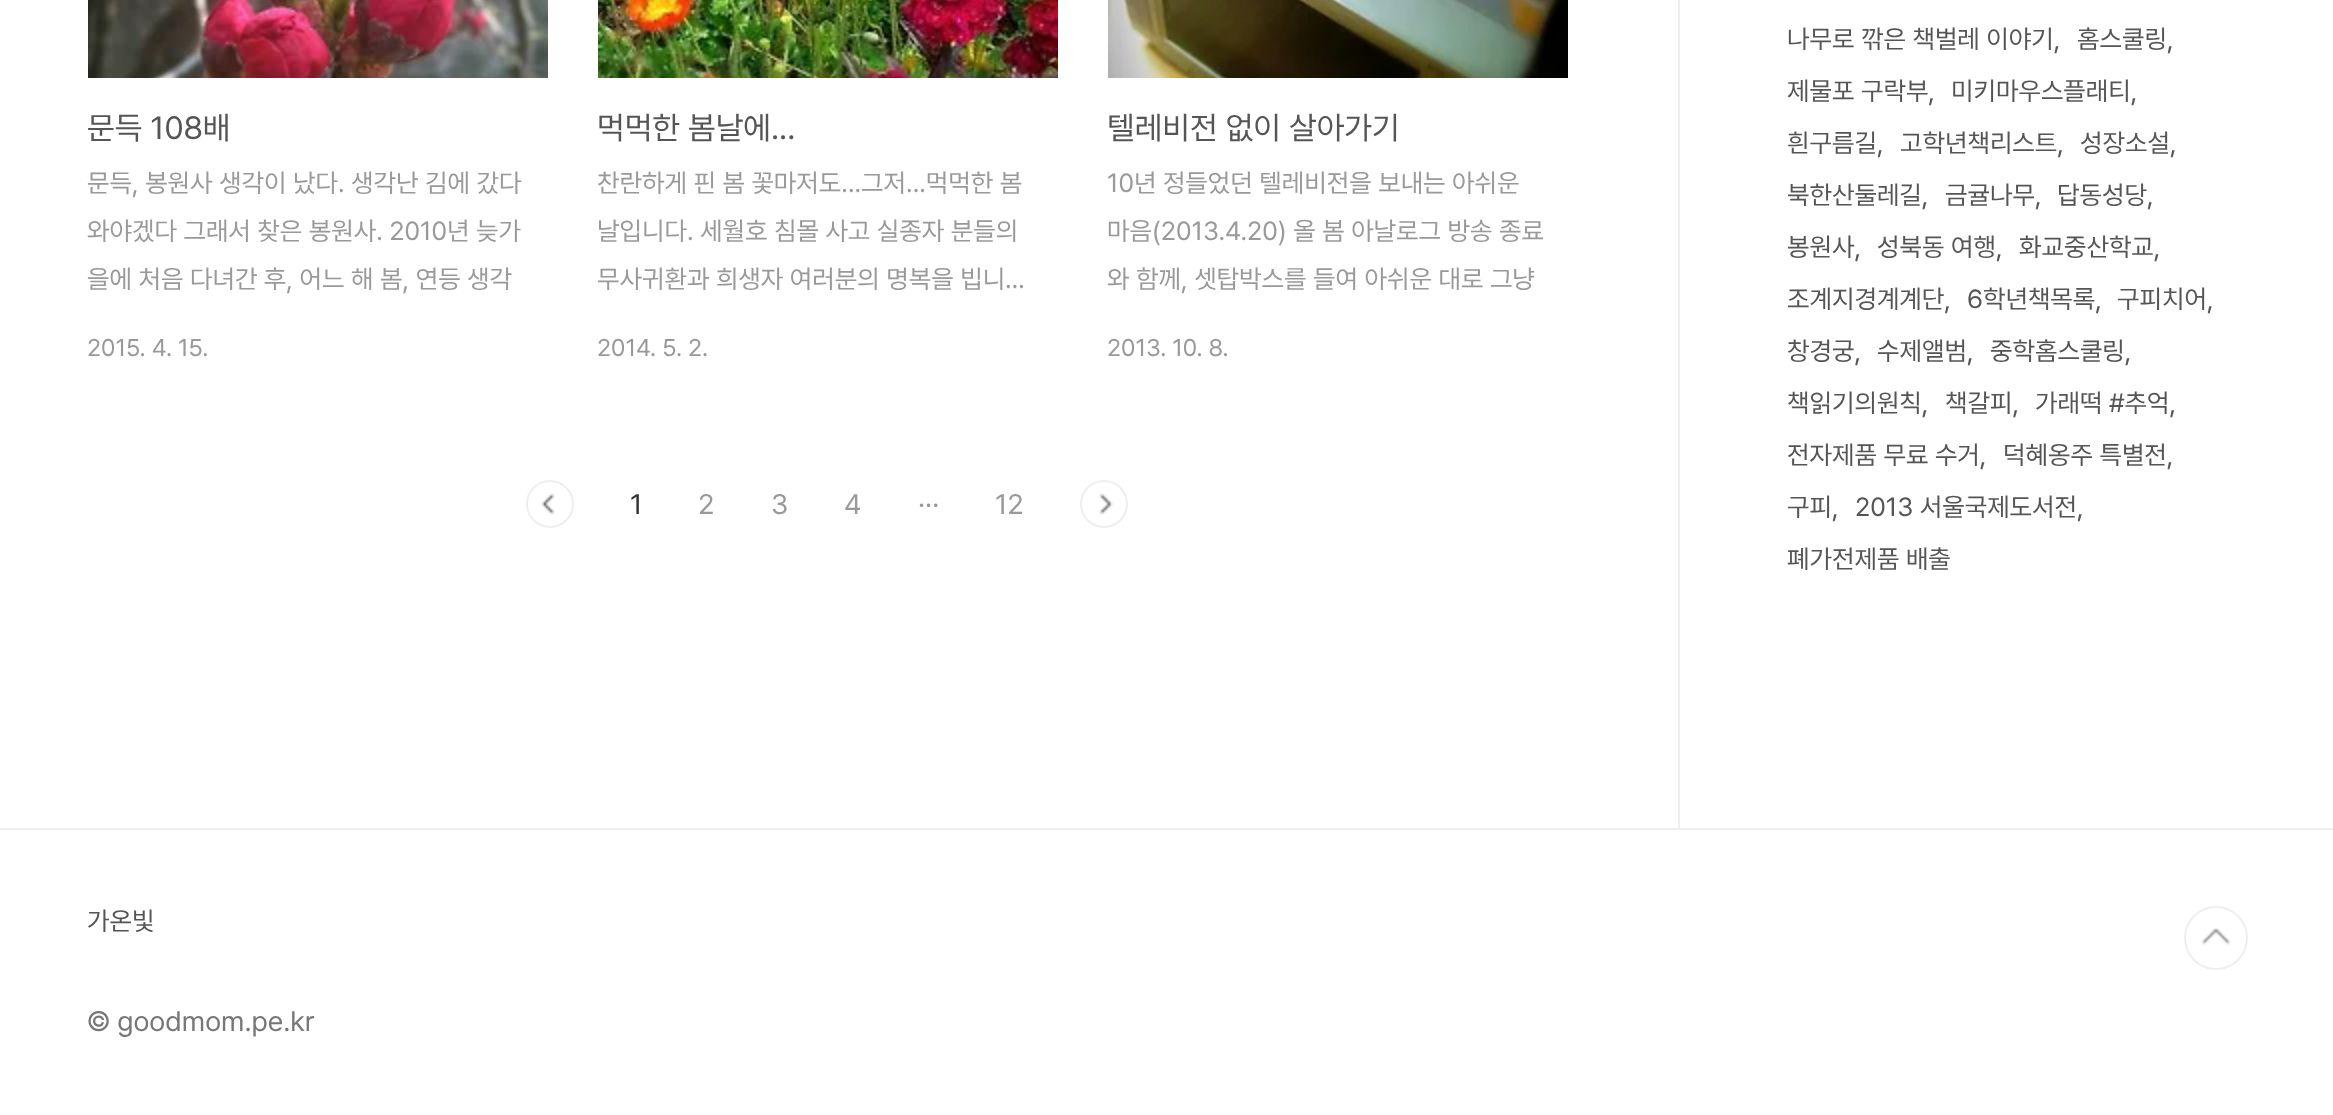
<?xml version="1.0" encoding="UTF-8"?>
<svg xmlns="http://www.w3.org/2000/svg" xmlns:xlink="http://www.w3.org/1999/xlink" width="2333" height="1115">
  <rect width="100%" height="100%" fill="#ffffff" />
  <image x="88" y="0" width="460" height="78" xlink:href="image1.png" />
  <image x="598" y="0" width="460" height="78" xlink:href="image2.png" />
  <image x="1108" y="0" width="460" height="78" xlink:href="image3.png" />
  <image x="541" y="493" width="14" height="22" xlink:href="image4.png" />
  <circle cx="550" cy="504" r="23" fill="none" stroke="#eeeeee" stroke-width="2" />
  <image x="1099" y="493" width="14" height="22" xlink:href="image5.png" />
  <circle cx="1104" cy="504" r="23" fill="none" stroke="#eeeeee" stroke-width="2" />
  <rect x="1678" width="2" height="828" fill="#eeeeee" />
  <rect y="828" width="2333" height="2" fill="#eeeeee" />
  <image x="2201" y="927" width="30" height="18" xlink:href="image6.png" />
  <circle cx="2216" cy="938" r="31" fill="none" stroke="#eeeeee" stroke-width="2" />
  <text x="87" y="139" style="font-family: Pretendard; font-size: 32px; fill: #555555">문득 108배</text>
  <text x="87" y="192" style="font-family: Pretendard; font-size: 26px; fill: #999999">문득, 봉원사 생각이 났다. 생각난 김에 갔다</text>
  <text x="87" y="240" style="font-family: Pretendard; font-size: 26px; fill: #999999">와야겠다 그래서 찾은 봉원사. 2010년 늦가</text>
  <text x="87" y="288" style="font-family: Pretendard; font-size: 26px; fill: #999999">을에 처음 다녀간 후, 어느 해 봄, 연등 생각</text>
  <text x="87" y="356" style="font-family: Pretendard; font-size: 24px; fill: #999999">2015. 4. 15.</text>
  <text x="597" y="139" style="font-family: Pretendard; font-size: 32px; fill: #555555">먹먹한 봄날에...</text>
  <text x="597" y="192" style="font-family: Pretendard; font-size: 26px; fill: #999999">찬란하게 핀 봄 꽃마저도...그저...먹먹한 봄</text>
  <text x="597" y="240" style="font-family: Pretendard; font-size: 26px; fill: #999999">날입니다. 세월호 침몰 사고 실종자 분들의</text>
  <text x="597" y="288" style="font-family: Pretendard; font-size: 26px; fill: #999999">무사귀환과 희생자 여러분의 명복을 빕니…</text>
  <text x="597" y="356" style="font-family: Pretendard; font-size: 24px; fill: #999999">2014. 5. 2.</text>
  <text x="1107" y="139" style="font-family: Pretendard; font-size: 32px; fill: #555555">텔레비전 없이 살아가기</text>
  <text x="1107" y="192" style="font-family: Pretendard; font-size: 26px; fill: #999999">10년 정들었던 텔레비전을 보내는 아쉬운</text>
  <text x="1107" y="240" style="font-family: Pretendard; font-size: 26px; fill: #999999">마음(2013.4.20) 올 봄 아날로그 방송 종료</text>
  <text x="1107" y="288" style="font-family: Pretendard; font-size: 26px; fill: #999999">와 함께, 셋탑박스를 들여 아쉬운 대로 그냥</text>
  <text x="1107" y="356" style="font-family: Pretendard; font-size: 24px; fill: #999999">2013. 10. 8.</text>
  <text x="630" y="514" style="font-family: Pretendard; font-size: 28px; fill: #333333">1</text>
  <text x="698" y="514" style="font-family: Pretendard; font-size: 28px; fill: #999999">2</text>
  <text x="771" y="514" style="font-family: Pretendard; font-size: 28px; fill: #999999">3</text>
  <text x="844" y="514" style="font-family: Pretendard; font-size: 28px; fill: #999999">4</text>
  <text x="918" y="514" style="font-family: Pretendard; font-size: 28px; fill: #999999">···</text>
  <text x="995" y="514" style="font-family: Pretendard; font-size: 28px; fill: #999999">12</text>
  <text x="1787" y="48" style="font-family: Pretendard; font-size: 26px; fill: #555555">나무로 깎은 책벌레 이야기,</text>
  <text x="2077" y="48" style="font-family: Pretendard; font-size: 26px; fill: #555555">홈스쿨링,</text>
  <text x="1787" y="100" style="font-family: Pretendard; font-size: 26px; fill: #555555">제물포 구락부,</text>
  <text x="1951" y="100" style="font-family: Pretendard; font-size: 26px; fill: #555555">미키마우스플래티,</text>
  <text x="1787" y="152" style="font-family: Pretendard; font-size: 26px; fill: #555555">흰구름길,</text>
  <text x="1900" y="152" style="font-family: Pretendard; font-size: 26px; fill: #555555">고학년책리스트,</text>
  <text x="2080" y="152" style="font-family: Pretendard; font-size: 26px; fill: #555555">성장소설,</text>
  <text x="1787" y="204" style="font-family: Pretendard; font-size: 26px; fill: #555555">북한산둘레길,</text>
  <text x="1945" y="204" style="font-family: Pretendard; font-size: 26px; fill: #555555">금귤나무,</text>
  <text x="2057" y="204" style="font-family: Pretendard; font-size: 26px; fill: #555555">답동성당,</text>
  <text x="1787" y="256" style="font-family: Pretendard; font-size: 26px; fill: #555555">봉원사,</text>
  <text x="1877" y="256" style="font-family: Pretendard; font-size: 26px; fill: #555555">성북동 여행,</text>
  <text x="2019" y="256" style="font-family: Pretendard; font-size: 26px; fill: #555555">화교중산학교,</text>
  <text x="1787" y="308" style="font-family: Pretendard; font-size: 26px; fill: #555555">조계지경계계단,</text>
  <text x="1967" y="308" style="font-family: Pretendard; font-size: 26px; fill: #555555">6학년책목록,</text>
  <text x="2117" y="308" style="font-family: Pretendard; font-size: 26px; fill: #555555">구피치어,</text>
  <text x="1787" y="360" style="font-family: Pretendard; font-size: 26px; fill: #555555">창경궁,</text>
  <text x="1877" y="360" style="font-family: Pretendard; font-size: 26px; fill: #555555">수제앨범,</text>
  <text x="1990" y="360" style="font-family: Pretendard; font-size: 26px; fill: #555555">중학홈스쿨링,</text>
  <text x="1787" y="412" style="font-family: Pretendard; font-size: 26px; fill: #555555">책읽기의원칙,</text>
  <text x="1945" y="412" style="font-family: Pretendard; font-size: 26px; fill: #555555">책갈피,</text>
  <text x="2035" y="412" style="font-family: Pretendard; font-size: 26px; fill: #555555">가래떡 #추억,</text>
  <text x="1787" y="464" style="font-family: Pretendard; font-size: 26px; fill: #555555">전자제품 무료 수거,</text>
  <text x="2003" y="464" style="font-family: Pretendard; font-size: 26px; fill: #555555">덕혜옹주 특별전,</text>
  <text x="1787" y="516" style="font-family: Pretendard; font-size: 26px; fill: #555555">구피,</text>
  <text x="1855" y="516" style="font-family: Pretendard; font-size: 26px; fill: #555555">2013 서울국제도서전,</text>
  <text x="1787" y="568" style="font-family: Pretendard; font-size: 26px; fill: #555555">폐가전제품 배출</text>
  <text x="87" y="930" style="font-family: Pretendard; font-size: 26px; fill: #555555">가온빛</text>
  <text x="87" y="1031" style="font-family: Pretendard; font-size: 28px; fill: #777777">© goodmom.pe.kr</text>
</svg>
